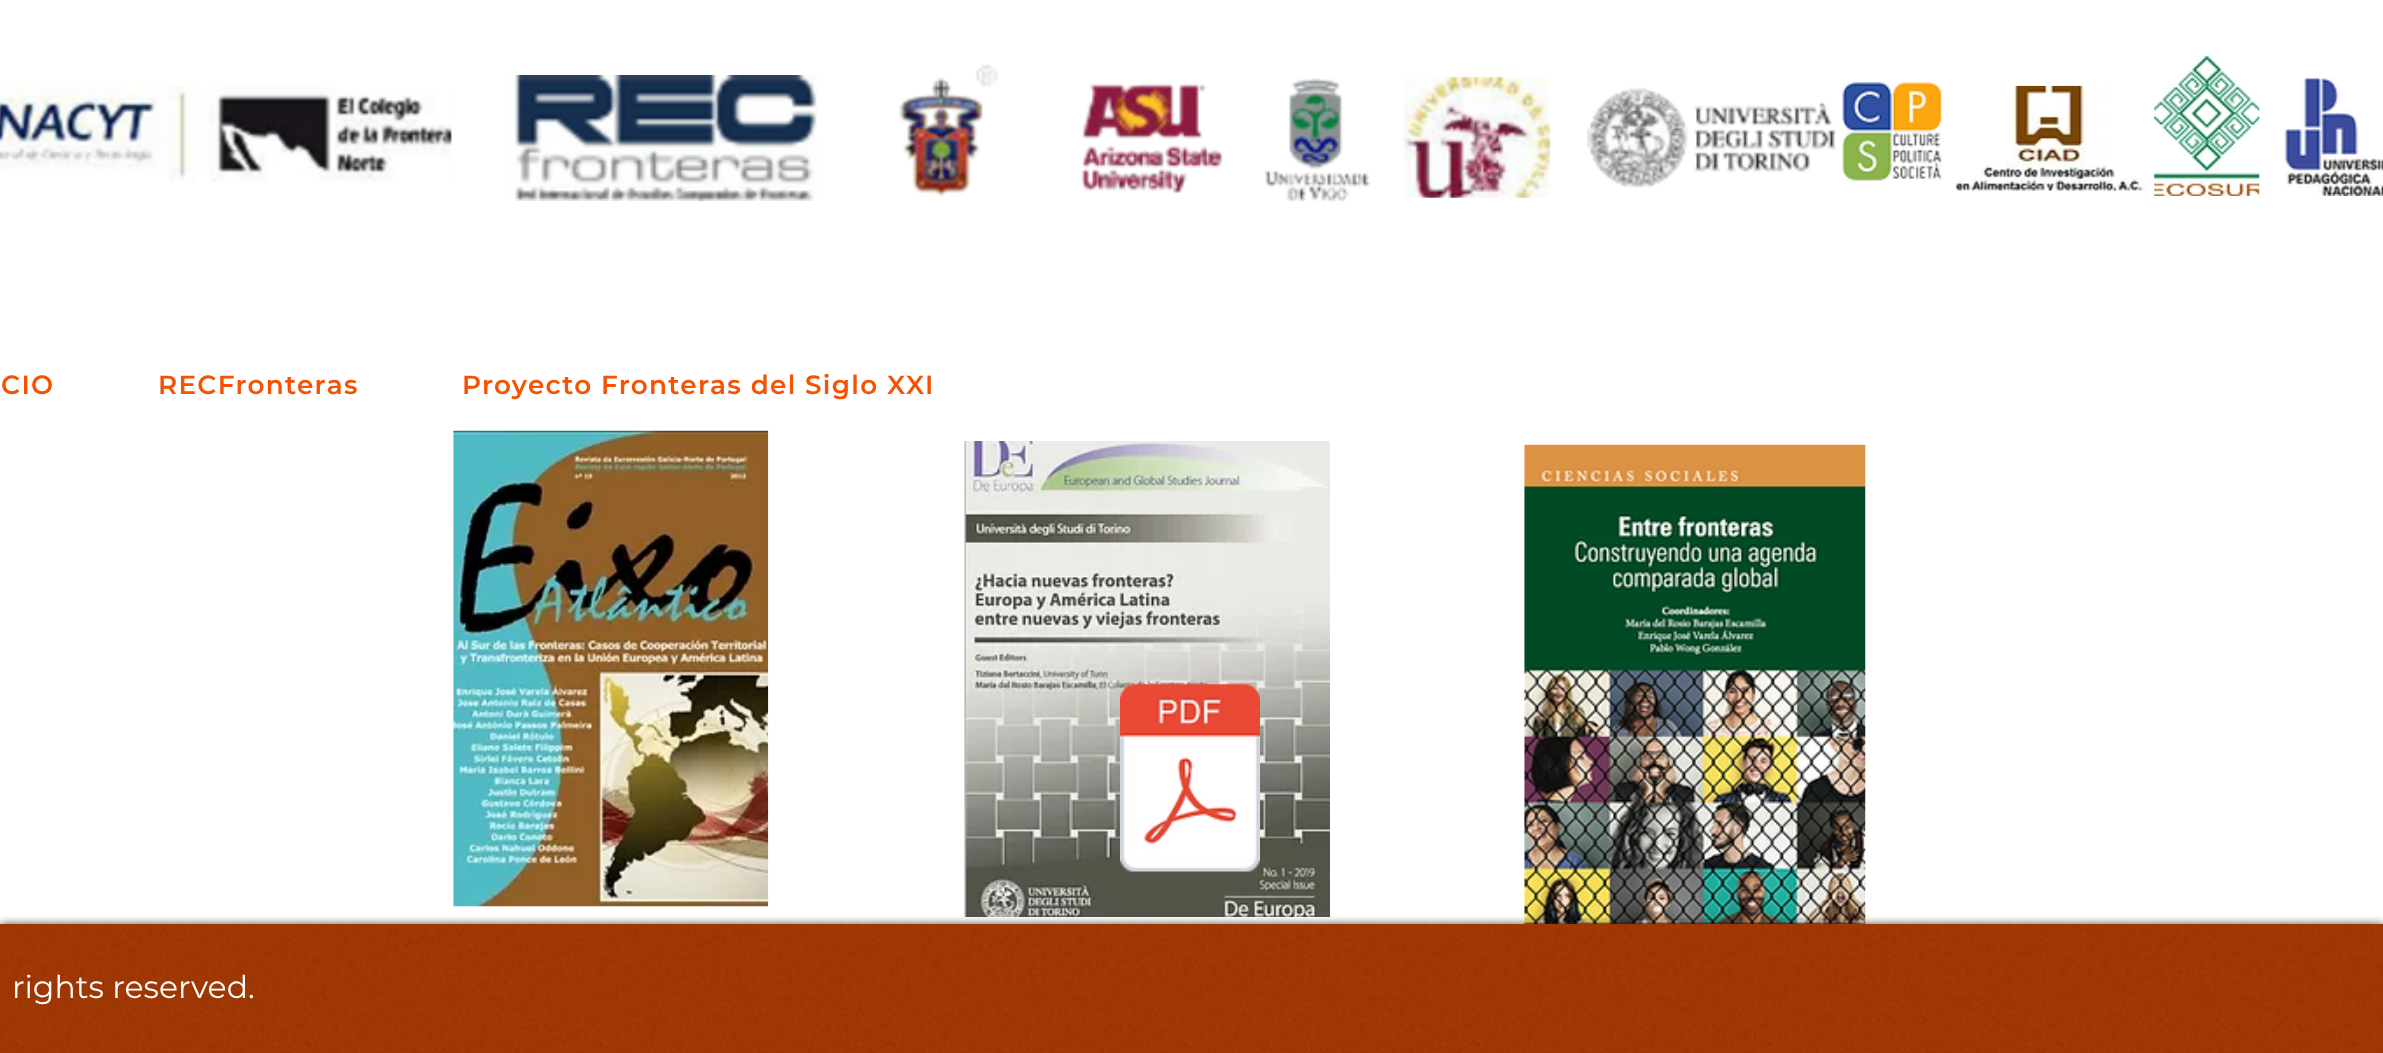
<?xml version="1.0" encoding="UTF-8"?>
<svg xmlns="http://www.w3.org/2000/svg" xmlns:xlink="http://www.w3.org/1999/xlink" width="2383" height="1053">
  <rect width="100%" height="100%" fill="#ffffff" />
  <image x="0" y="86" width="452" height="97" xlink:href="image1.png" />
  <image x="507" y="75" width="311" height="126" xlink:href="image2.png" />
  <image x="899" y="64" width="100" height="133" xlink:href="image3.png" />
  <image x="1081" y="83" width="143" height="111" xlink:href="image4.png" />
  <image x="1264" y="77" width="106" height="125" xlink:href="image5.png" />
  <image x="1403" y="76" width="148" height="122" xlink:href="image6.png" />
  <image x="1587" y="87" width="249" height="102" xlink:href="image7.png" />
  <image x="1842" y="81" width="101" height="100" xlink:href="image8.png" />
  <image x="1953" y="85" width="193" height="106" xlink:href="image9.png" />
  <image x="2154" y="56" width="106" height="140" xlink:href="image10.png" />
  <image x="2284" y="77" width="99" height="119" xlink:href="image11.png" />
  <image x="453" y="430" width="316" height="477" xlink:href="image12.png" />
  <image x="964" y="441" width="366" height="476" xlink:href="image13.png" />
  <image x="1524" y="444" width="342" height="480" xlink:href="image14.png" />
  <image x="1120" y="684" width="140" height="188" xlink:href="image15.png" />
  <rect y="924" width="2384" height="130" fill="#000000" fill-opacity="0.7" filter="blur(4.5px)" />
  <rect y="924" width="2383" height="129" fill="#a33702" />
  <image x="0" y="924" width="2383" height="129" xlink:href="image16.png" />
  <text x="1" y="394" style="font-family: Montserrat; font-size: 26.25px; font-weight: 600; letter-spacing: 1.3px; fill: #f55203">CIO</text>
  <text x="158" y="394" style="font-family: Montserrat; font-size: 26.25px; font-weight: 600; letter-spacing: 1.3px; fill: #f55203">RECFronteras</text>
  <text x="462" y="394" style="font-family: Montserrat; font-size: 26.25px; font-weight: 600; letter-spacing: 1.3px; fill: #f55203">Proyecto Fronteras del Siglo XXI</text>
  <text x="12" y="998" style="font-family: Montserrat; font-size: 31.5px; fill: #ffffff">rights reserved.</text>
</svg>
